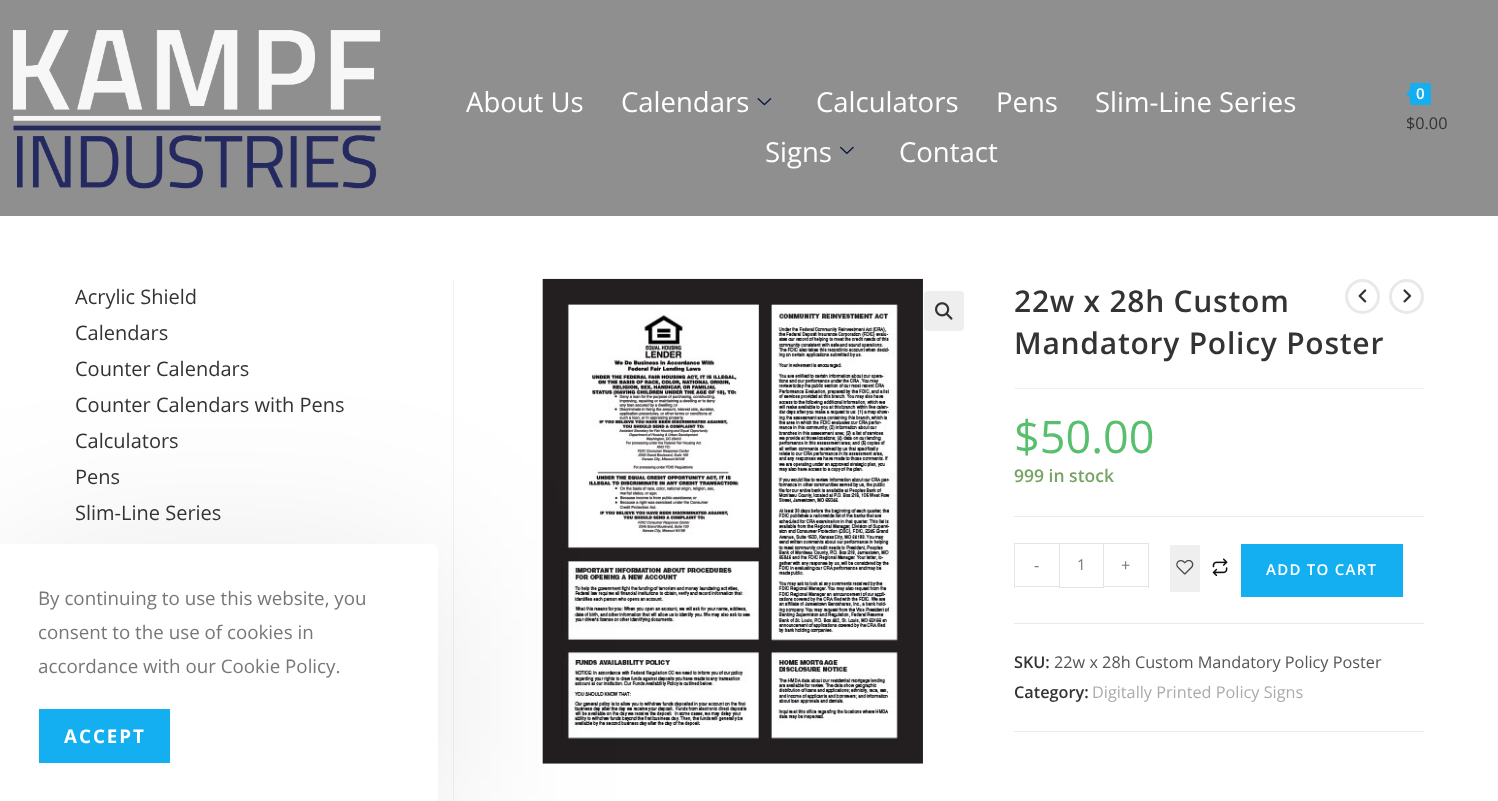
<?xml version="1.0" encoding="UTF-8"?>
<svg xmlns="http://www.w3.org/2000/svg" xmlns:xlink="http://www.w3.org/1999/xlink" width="1498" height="801">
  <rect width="100%" height="100%" fill="#ffffff" />
  <rect width="1498" height="216" fill="#8f8f8f" />
  <image x="12" y="30" width="369" height="159" xlink:href="image1.png" />
  <image x="757" y="98" width="15" height="8" xlink:href="image2.png" />
  <image x="840" y="146" width="14" height="8" xlink:href="image3.png" />
  <rect x="1410" y="83" width="21" height="22" rx="2.5" fill="#13aff0" />
  <path d="M 1412.5 87.5 v 12.5 l -6.5 -6 z" fill="#13aff0" />
  <rect x="453" y="279" width="1" height="522" fill="#f1f1f1" />
  <image x="542" y="278" width="381" height="486" xlink:href="image4.png" />
  <rect x="924" y="291" width="40" height="40" rx="4" fill="#eeeeee" />
  <image x="935" y="302" width="18" height="18" xlink:href="image5.png" />
  <rect x="1014" y="388" width="410" height="1" fill="#f1f1f1" />
  <rect x="1014" y="516" width="410" height="1" fill="#eaeaea" />
  <rect x="1014" y="623" width="410" height="1" fill="#eaeaea" />
  <rect x="1014" y="543" width="45" height="1" fill="#e4e4e4" />
  <rect x="1014" y="586" width="45" height="1" fill="#e4e4e4" />
  <rect x="1014" y="543" width="1" height="45" fill="#e4e4e4" />
  <rect x="1059.5" y="543.5" width="44" height="44" fill="none" stroke="#e4e4e4" />
  <rect x="1104" y="543" width="45" height="1" fill="#e4e4e4" />
  <rect x="1148" y="543" width="1" height="45" fill="#e4e4e4" />
  <rect x="1104" y="586" width="45" height="1" fill="#e4e4e4" />
  <rect x="1170" y="545" width="30" height="47" fill="#efefef" />
  <image x="1176" y="559" width="18" height="16" xlink:href="image6.png" />
  <image x="1212" y="558" width="16" height="19" xlink:href="image7.png" />
  <rect x="1241" y="544" width="162" height="53" fill="#13aff0" />
  <rect x="1014" y="731" width="410" height="1" fill="#eaeaea" />
  <circle cx="1362.5" cy="296.5" r="16" fill="none" stroke="#e9e9e9" stroke-width="3" />
  <image x="1358" y="289" width="9" height="14" xlink:href="image8.png" />
  <circle cx="1406.5" cy="296.5" r="16" fill="none" stroke="#e9e9e9" stroke-width="3" />
  <image x="1403" y="289" width="9" height="14" xlink:href="image9.png" />
  <rect y="569" width="438" height="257" rx="5" fill="#000000" fill-opacity="0.1" filter="blur(94px)" />
  <path d="M 0 544 h 433 c 3 0 5 2 5 5 v 252 h -438 z" fill="#ffffff" />
  <rect x="39" y="709" width="131" height="54" fill="#13aff0" />
  <text x="466" y="112" style="font-family: Open Sans; font-size: 27.5px; fill: #ffffff">About Us</text>
  <text x="621" y="112" style="font-family: Open Sans; font-size: 27.5px; fill: #ffffff">Calendars</text>
  <text x="816" y="112" style="font-family: Open Sans; font-size: 27.5px; fill: #ffffff">Calculators</text>
  <text x="996" y="112" style="font-family: Open Sans; font-size: 27.5px; fill: #ffffff">Pens</text>
  <text x="1095" y="112" style="font-family: Open Sans; font-size: 27.5px; fill: #ffffff">Slim-Line Series</text>
  <text x="765" y="162" style="font-family: Open Sans; font-size: 27.5px; fill: #ffffff">Signs</text>
  <text x="899" y="162" style="font-family: Open Sans; font-size: 27.5px; fill: #ffffff">Contact</text>
  <text x="1416" y="99" style="font-family: Open Sans; font-size: 15px; font-weight: 600; fill: #ffffff">0</text>
  <text x="1406" y="129" style="font-family: Open Sans; font-size: 16.25px; fill: #333333">$0.00</text>
  <text x="75" y="304" style="font-family: Open Sans; font-size: 20px; fill: #333333">Acrylic Shield</text>
  <text x="75" y="340" style="font-family: Open Sans; font-size: 20px; fill: #333333">Calendars</text>
  <text x="75" y="376" style="font-family: Open Sans; font-size: 20px; fill: #333333">Counter Calendars</text>
  <text x="75" y="412" style="font-family: Open Sans; font-size: 20px; fill: #333333">Counter Calendars with Pens</text>
  <text x="75" y="448" style="font-family: Open Sans; font-size: 20px; fill: #333333">Calculators</text>
  <text x="75" y="484" style="font-family: Open Sans; font-size: 20px; fill: #333333">Pens</text>
  <text x="75" y="520" style="font-family: Open Sans; font-size: 20px; fill: #333333">Slim-Line Series</text>
  <text x="1014" y="312" style="font-family: Open Sans; font-size: 30px; font-weight: 600; letter-spacing: 0.75px; fill: #333333">22w x 28h Custom</text>
  <text x="1014" y="354" style="font-family: Open Sans; font-size: 30px; font-weight: 600; letter-spacing: 0.75px; fill: #333333">Mandatory Policy Poster</text>
  <text x="1014" y="453" style="font-family: Open Sans; font-size: 45px; fill: #57bf6d">$50.00</text>
  <text x="1014" y="482" style="font-family: Open Sans; font-size: 17.5px; font-weight: 600; fill: #77a464">999 in stock</text>
  <text x="1034" y="571" style="font-family: Open Sans; font-size: 16.25px; fill: #777777">-</text>
  <text x="1077" y="570" style="font-family: Open Sans; font-size: 15px; fill: #777777">1</text>
  <text x="1121" y="571" style="font-family: Open Sans; font-size: 16.25px; fill: #777777">+</text>
  <text x="1266" y="575" style="font-family: Open Sans; font-size: 15px; font-weight: 600; letter-spacing: 1.25px; fill: #ffffff">ADD TO CART</text>
  <text x="1014" y="668" style="font-family: Open Sans; font-size: 16.25px; font-weight: 600; fill: #333333">SKU:</text>
  <text x="1054" y="668" style="font-family: Open Sans; font-size: 16.25px; fill: #555555">22w x 28h Custom Mandatory Policy Poster</text>
  <text x="1014" y="698" style="font-family: Open Sans; font-size: 16.25px; font-weight: 600; fill: #333333">Category:</text>
  <text x="1092" y="698" style="font-family: Open Sans; font-size: 16.25px; fill: #ababab">Digitally Printed Policy Signs</text>
  <text x="38" y="605" style="font-family: Open Sans; font-size: 18.75px; fill: #777777">By continuing to use this website, you</text>
  <text x="38" y="639" style="font-family: Open Sans; font-size: 18.75px; fill: #777777">consent to the use of cookies in</text>
  <text x="38" y="673" style="font-family: Open Sans; font-size: 18.75px; fill: #777777">accordance with our Cookie Policy.</text>
  <text x="64" y="743" style="font-family: Open Sans; font-size: 18.75px; font-weight: bold; letter-spacing: 2px; fill: #ffffff">ACCEPT</text>
</svg>
